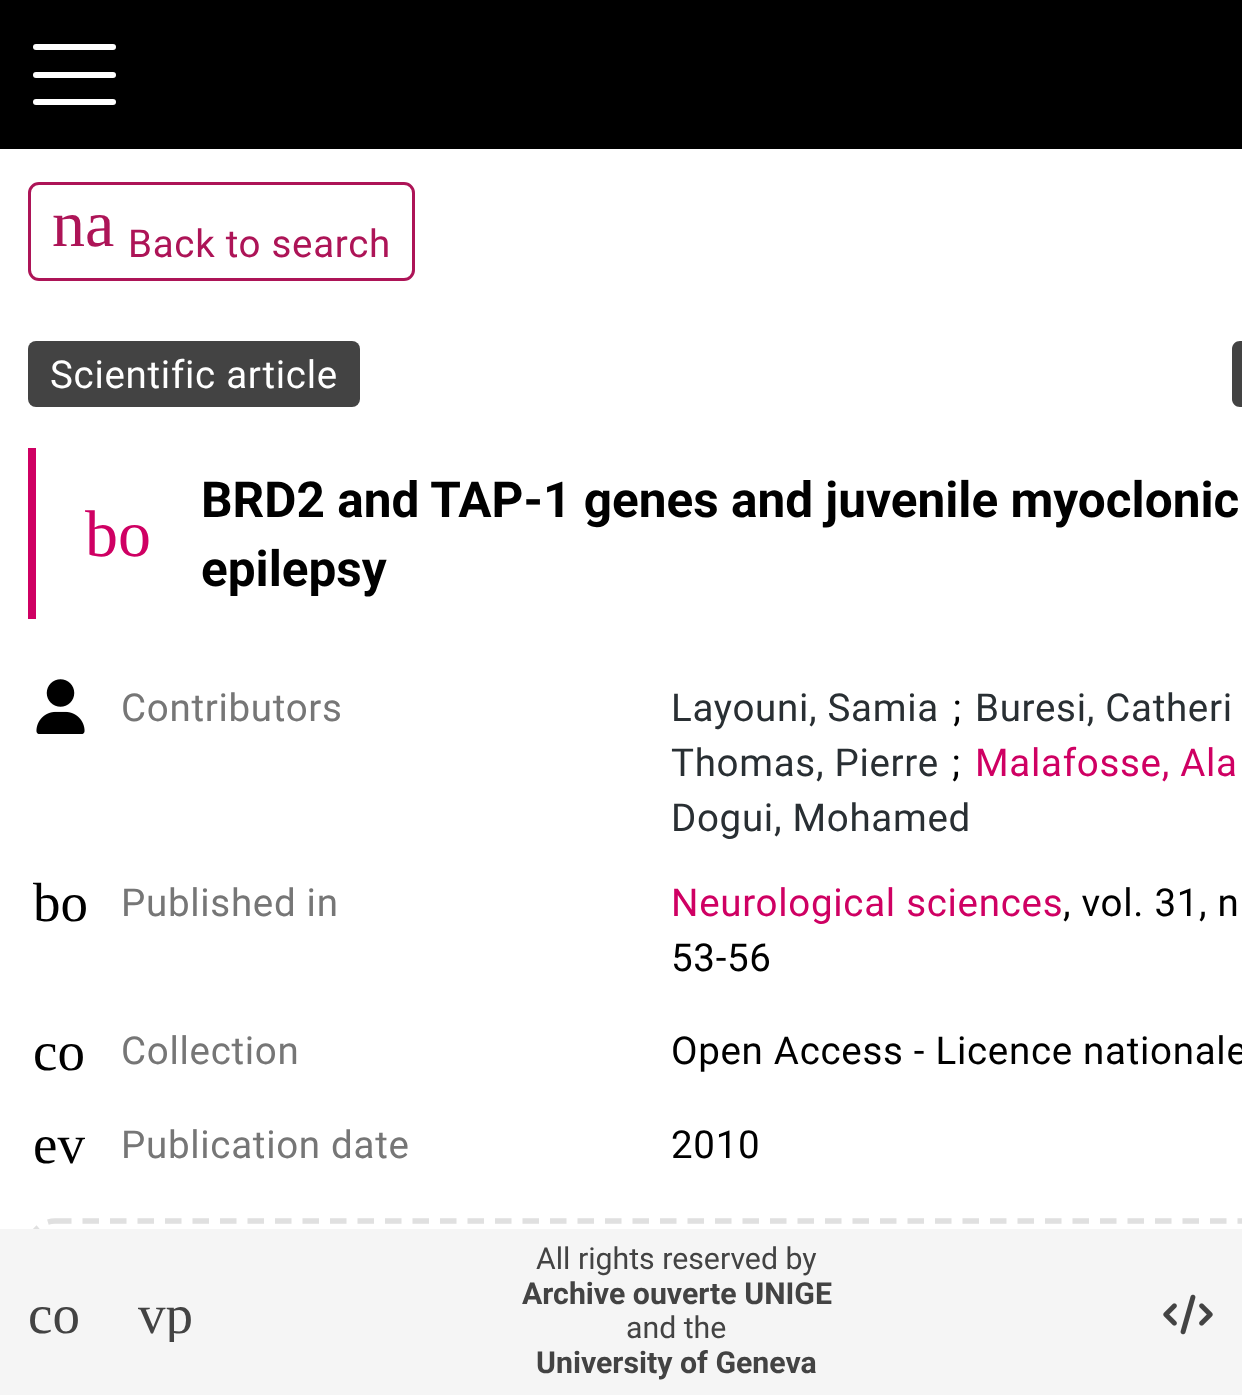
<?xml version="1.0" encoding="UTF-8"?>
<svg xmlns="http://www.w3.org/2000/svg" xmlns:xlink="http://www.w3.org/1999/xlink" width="1242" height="1395">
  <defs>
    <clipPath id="clip1"><rect x="138" y="1287" width="55" height="55" /></clipPath>
  </defs>
  <rect width="100%" height="100%" fill="#ffffff" />
  <rect width="1242" height="149" fill="#000000" />
  <rect x="33" y="44" width="83" height="6" rx="3" fill="#ffffff" />
  <rect x="33" y="72" width="83" height="6" rx="3" fill="#ffffff" />
  <rect x="33" y="99" width="83" height="6" rx="3" fill="#ffffff" />
  <rect x="29.5" y="183.5" width="384" height="96" rx="9.5" fill="none" stroke="#ad1457" stroke-width="3" />
  <rect x="28" y="341" width="332" height="66" rx="8" fill="#434343" />
  <path d="M 1240 341 h 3 v 66 h -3 c -4.5 0 -8 -3.5 -8 -8 v -50 c 0 -4.5 3.5 -8 8 -8 z" fill="#434343" />
  <rect x="28" y="448" width="8" height="171" fill="#cf0063" />
  <image x="36" y="679" width="49" height="55" xlink:href="image1.png" />
  <path d="M 55 1221 h 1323 c 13.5 0 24.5 11 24.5 25 v 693 c 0 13.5 -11 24.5 -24.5 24.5 h -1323 c -13.5 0 -25 -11 -25 -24.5 v -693 c 0 -14 11.5 -25 25 -25 z" fill="none" stroke="#e0e0e0" stroke-width="5.5" stroke-dasharray="16.5 11" />
  <rect y="1229" width="1242" height="166" fill="#f5f5f5" />
  <image x="1163" y="1294" width="50" height="41" xlink:href="image2.png" />
  <text x="52" y="246" style="font-family: Liberation Serif; font-size: 66px; fill: #ad1457">na</text>
  <text x="128" y="257" style="font-family: Roboto; font-size: 38.5px; letter-spacing: 0.7px; fill: #ad1457">Back to search</text>
  <text x="50" y="388" style="font-family: Roboto; font-size: 38.5px; letter-spacing: 0.7px; fill: #ffffff">Scientific article</text>
  <text x="85" y="556" style="font-family: Liberation Serif; font-size: 66px; fill: #cf0063">bo</text>
  <text x="201" y="517" style="font-family: Roboto; font-size: 49.5px; font-weight: bold; fill: #000000">BRD2 and TAP-1 genes and juvenile myoclonic</text>
  <text x="201" y="586" style="font-family: Roboto; font-size: 49.5px; font-weight: bold; fill: #000000">epilepsy</text>
  <text x="121" y="721" style="font-family: Roboto; font-size: 38.5px; letter-spacing: 0.7px; fill: #767676">Contributors</text>
  <text x="671" y="721" style="font-family: Roboto; font-size: 38.5px; letter-spacing: 0.7px; fill: #292f33">Layouni, Samia</text>
  <text x="953" y="721" style="font-family: Roboto; font-size: 38.5px; letter-spacing: 0.7px; fill: #000000">;</text>
  <text x="975" y="721" style="font-family: Roboto; font-size: 38.5px; letter-spacing: 0.7px; fill: #292f33">Buresi, Catheri</text>
  <text x="671" y="776" style="font-family: Roboto; font-size: 38.5px; letter-spacing: 0.7px; fill: #292f33">Thomas, Pierre</text>
  <text x="952" y="776" style="font-family: Roboto; font-size: 38.5px; letter-spacing: 0.7px; fill: #000000">;</text>
  <text x="975" y="776" style="font-family: Roboto; font-size: 38.5px; letter-spacing: 0.7px; fill: #cf0063">Malafosse, Ala</text>
  <text x="671" y="831" style="font-family: Roboto; font-size: 38.5px; letter-spacing: 0.7px; fill: #292f33">Dogui, Mohamed</text>
  <text x="33" y="921" style="font-family: Liberation Serif; font-size: 55px; fill: #000000">bo</text>
  <text x="121" y="916" style="font-family: Roboto; font-size: 38.5px; letter-spacing: 0.7px; fill: #767676">Published in</text>
  <text x="671" y="916" style="font-family: Roboto; font-size: 38.5px; letter-spacing: 0.7px; fill: #cf0063">Neurological sciences</text>
  <text x="1063" y="916" style="font-family: Roboto; font-size: 38.5px; letter-spacing: 0.7px; fill: #000000">, vol. 31, n</text>
  <text x="671" y="971" style="font-family: Roboto; font-size: 38.5px; letter-spacing: 0.7px; fill: #000000">53-56</text>
  <text x="33" y="1070" style="font-family: Liberation Serif; font-size: 55px; fill: #000000">co</text>
  <text x="121" y="1064" style="font-family: Roboto; font-size: 38.5px; letter-spacing: 0.7px; fill: #767676">Collection</text>
  <text x="671" y="1064" style="font-family: Roboto; font-size: 38.5px; letter-spacing: 0.7px; fill: #000000">Open Access - Licence nationale</text>
  <text x="33" y="1163" style="font-family: Liberation Serif; font-size: 55px; fill: #000000">ev</text>
  <text x="121" y="1158" style="font-family: Roboto; font-size: 38.5px; letter-spacing: 0.7px; fill: #767676">Publication date</text>
  <text x="671" y="1158" style="font-family: Roboto; font-size: 38.5px; letter-spacing: 0.7px; fill: #000000">2010</text>
  <text x="28" y="1333" style="font-family: Liberation Serif; font-size: 55px; fill: #434343">co</text>
  <g clip-path="url(#clip1)">
    <text x="138" y="1333" style="font-family: Liberation Serif; font-size: 55px; fill: #434343">vp</text>
  </g>
  <text x="536" y="1269" style="font-family: Roboto; font-size: 30.25px; fill: #434343">All rights reserved by</text>
  <text x="522" y="1304" style="font-family: Roboto; font-size: 30.25px; font-weight: bold; fill: #434343">Archive ouverte UNIGE</text>
  <text x="626" y="1338" style="font-family: Roboto; font-size: 30.25px; fill: #434343">and the</text>
  <text x="536" y="1373" style="font-family: Roboto; font-size: 30.25px; font-weight: bold; fill: #434343">University of Geneva</text>
</svg>
